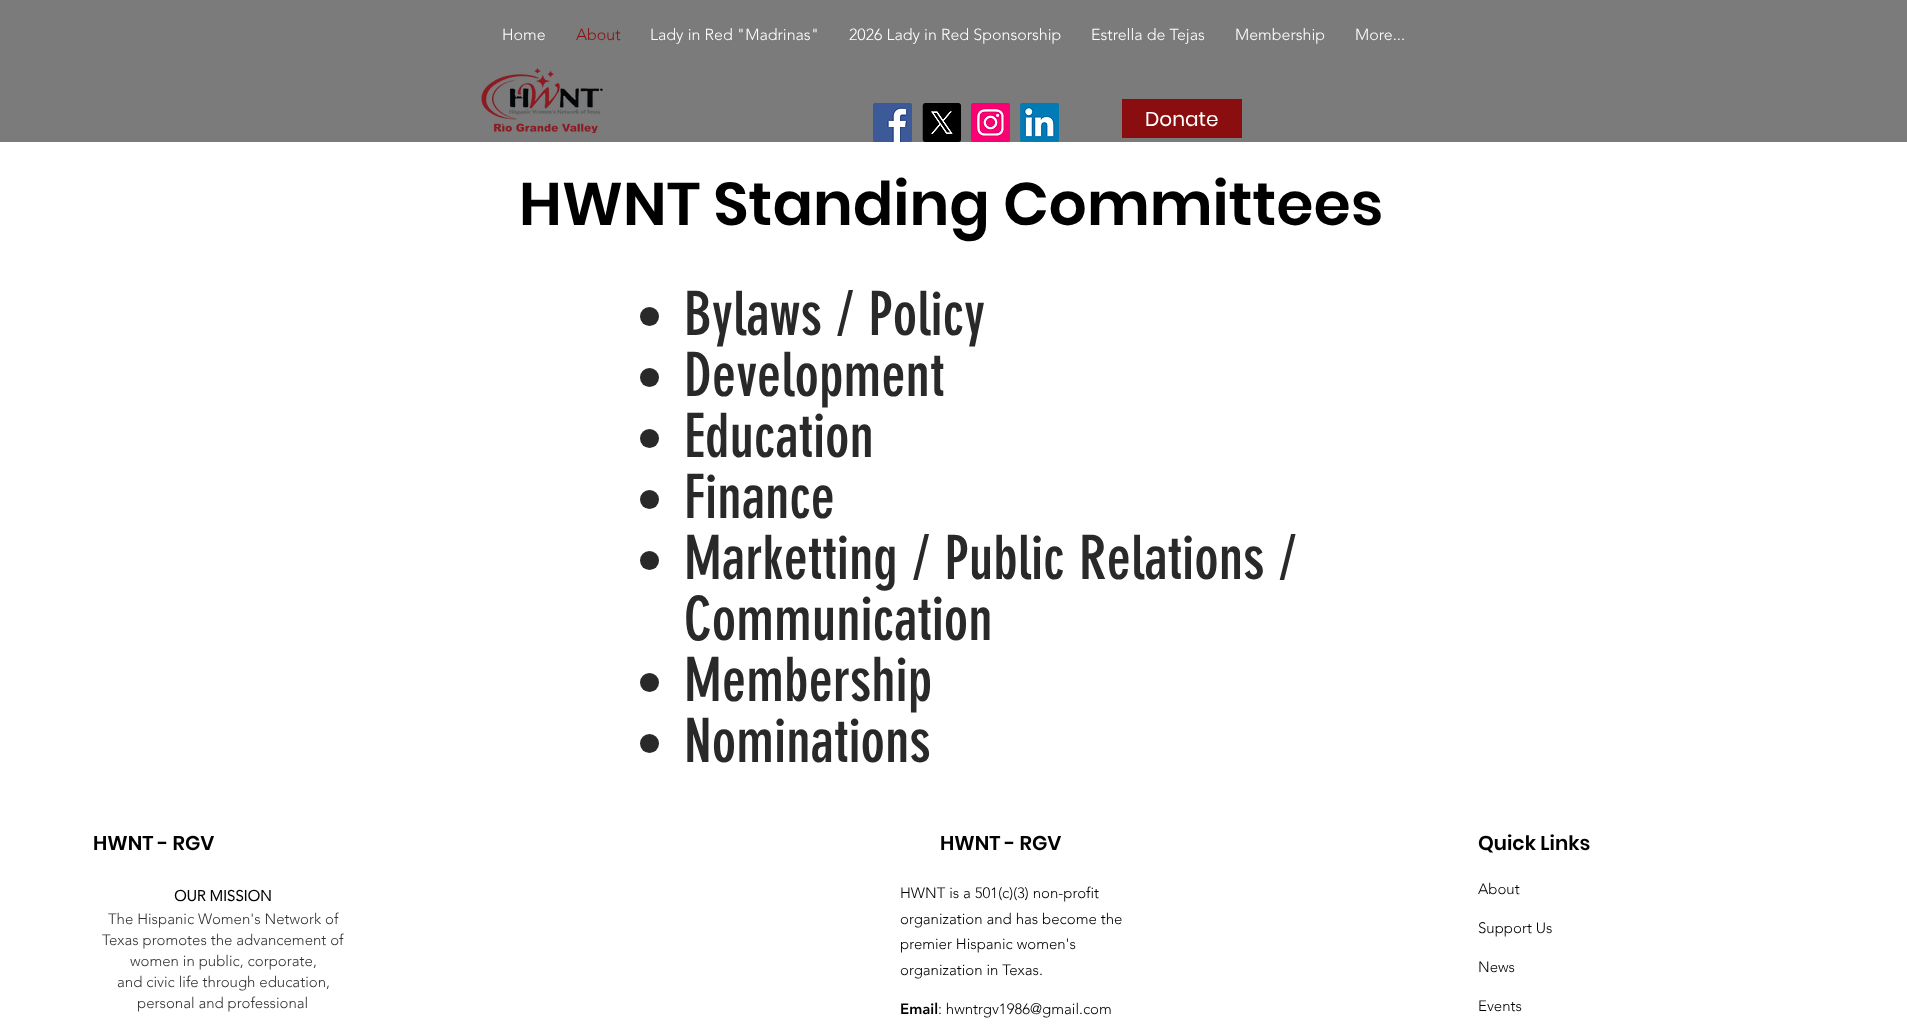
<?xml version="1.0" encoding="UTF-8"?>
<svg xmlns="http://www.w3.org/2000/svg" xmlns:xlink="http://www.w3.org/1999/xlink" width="1907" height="1024">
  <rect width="100%" height="100%" fill="#ffffff" />
  <rect width="1907" height="142" fill="#7b7b7b" />
  <image x="481" y="68" width="122" height="65" xlink:href="image1.png" />
  <image x="873" y="103" width="39" height="39" xlink:href="image2.png" />
  <image x="922" y="103" width="39" height="39" xlink:href="image3.png" />
  <image x="971" y="103" width="39" height="39" xlink:href="image4.png" />
  <image x="1020" y="103" width="39" height="39" xlink:href="image5.png" />
  <rect x="1122" y="99" width="120" height="39" fill="#8a0e10" />
  <circle cx="649.5" cy="316.5" r="9.5" fill="#292929" />
  <circle cx="649.5" cy="377.5" r="9.5" fill="#292929" />
  <circle cx="649.5" cy="438.5" r="9.5" fill="#292929" />
  <circle cx="649.5" cy="499.5" r="9.5" fill="#292929" />
  <circle cx="649.5" cy="560.5" r="9.5" fill="#292929" />
  <circle cx="649.5" cy="682.5" r="9.5" fill="#292929" />
  <circle cx="649.5" cy="743.5" r="9.5" fill="#292929" />
  <text x="502" y="40" style="font-family: 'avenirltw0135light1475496'; font-size: 16px; font-weight: 300; fill: #ffffff">Home</text>
  <text x="576" y="40" style="font-family: 'avenirltw0135light1475496'; font-size: 16px; font-weight: 300; fill: #8a0e10">About</text>
  <text x="650" y="40" style="font-family: 'avenirltw0135light1475496'; font-size: 16px; font-weight: 300; fill: #ffffff">Lady in Red "Madrinas"</text>
  <text x="849" y="40" style="font-family: 'avenirltw0135light1475496'; font-size: 16px; font-weight: 300; fill: #ffffff">2026 Lady in Red Sponsorship</text>
  <text x="1091" y="40" style="font-family: 'avenirltw0135light1475496'; font-size: 16px; font-weight: 300; fill: #ffffff">Estrella de Tejas</text>
  <text x="1235" y="40" style="font-family: 'avenirltw0135light1475496'; font-size: 16px; font-weight: 300; fill: #ffffff">Membership</text>
  <text x="1355" y="40" style="font-family: 'avenirltw0135light1475496'; font-size: 16px; font-weight: 300; fill: #ffffff">More...</text>
  <text x="1145" y="126" style="font-family: Poppins; font-size: 20px; fill: #ffffff">Donate</text>
  <text x="519" y="225" style="font-family: Poppins; font-size: 60px; font-weight: 600; fill: #000000">HWNT Standing Committees</text>
  <text x="684" y="335" style="font-family: 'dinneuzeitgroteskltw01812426'; font-size: 60px; fill: #292929">Bylaws / Policy</text>
  <text x="684" y="396" style="font-family: 'dinneuzeitgroteskltw01812426'; font-size: 60px; fill: #292929">Development</text>
  <text x="684" y="457" style="font-family: 'dinneuzeitgroteskltw01812426'; font-size: 60px; fill: #292929">Education</text>
  <text x="684" y="518" style="font-family: 'dinneuzeitgroteskltw01812426'; font-size: 60px; fill: #292929">Finance</text>
  <text x="684" y="579" style="font-family: 'dinneuzeitgroteskltw01812426'; font-size: 60px; fill: #292929">Marketting / Public Relations /</text>
  <text x="684" y="640" style="font-family: 'dinneuzeitgroteskltw01812426'; font-size: 60px; fill: #292929">Communication</text>
  <text x="684" y="701" style="font-family: 'dinneuzeitgroteskltw01812426'; font-size: 60px; fill: #292929">Membership</text>
  <text x="684" y="762" style="font-family: 'dinneuzeitgroteskltw01812426'; font-size: 60px; fill: #292929">Nominations</text>
  <text x="93" y="850" style="font-family: Poppins; font-size: 20px; font-weight: 600; fill: #000000">HWNT - RGV</text>
  <text x="174" y="901" style="font-family: 'avenirltw0135light1475496'; font-size: 15px; font-weight: bold; fill: #000000">OUR MISSION</text>
  <text x="108" y="924" style="font-family: 'avenirltw0135light1475496'; font-size: 15px; font-weight: 300; fill: #333333">The Hispanic Women's Network of</text>
  <text x="102" y="945" style="font-family: 'avenirltw0135light1475496'; font-size: 15px; font-weight: 300; fill: #333333">Texas promotes the advancement of</text>
  <text x="130" y="966" style="font-family: 'avenirltw0135light1475496'; font-size: 15px; font-weight: 300; fill: #333333">women in public, corporate,</text>
  <text x="117" y="987" style="font-family: 'avenirltw0135light1475496'; font-size: 15px; font-weight: 300; fill: #333333">and civic life through education,</text>
  <text x="137" y="1008" style="font-family: 'avenirltw0135light1475496'; font-size: 15px; font-weight: 300; fill: #333333">personal and professional</text>
  <text x="940" y="850" style="font-family: Poppins; font-size: 20px; font-weight: 600; fill: #000000">HWNT - RGV</text>
  <text x="900" y="898" style="font-family: 'avenirltw0135light1475496'; font-size: 15px; font-weight: 300; fill: #000000">HWNT is a 501(c)(3) non-profit</text>
  <text x="900" y="924" style="font-family: 'avenirltw0135light1475496'; font-size: 15px; font-weight: 300; fill: #000000">organization and has become the</text>
  <text x="900" y="949" style="font-family: 'avenirltw0135light1475496'; font-size: 15px; font-weight: 300; fill: #000000">premier Hispanic women's</text>
  <text x="900" y="975" style="font-family: 'avenirltw0135light1475496'; font-size: 15px; font-weight: 300; fill: #000000">organization in Texas.</text>
  <text x="900" y="1014" style="font-family: 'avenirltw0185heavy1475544'; font-size: 15px; font-weight: 900; fill: #000000">Email</text>
  <text x="938" y="1014" style="font-family: 'avenirltw0135light1475496'; font-size: 15px; font-weight: 300; fill: #000000">: hwntrgv1986@gmail.com</text>
  <text x="1478" y="850" style="font-family: Poppins; font-size: 20px; font-weight: 600; fill: #000000">Quick Links</text>
  <text x="1478" y="894" style="font-family: 'avenirltw0135light1475496'; font-size: 15px; font-weight: 300; fill: #000000">About</text>
  <text x="1478" y="933" style="font-family: 'avenirltw0135light1475496'; font-size: 15px; font-weight: 300; fill: #000000">Support Us</text>
  <text x="1478" y="972" style="font-family: 'avenirltw0135light1475496'; font-size: 15px; font-weight: 300; fill: #000000">News</text>
  <text x="1478" y="1011" style="font-family: 'avenirltw0135light1475496'; font-size: 15px; font-weight: 300; fill: #000000">Events</text>
</svg>
